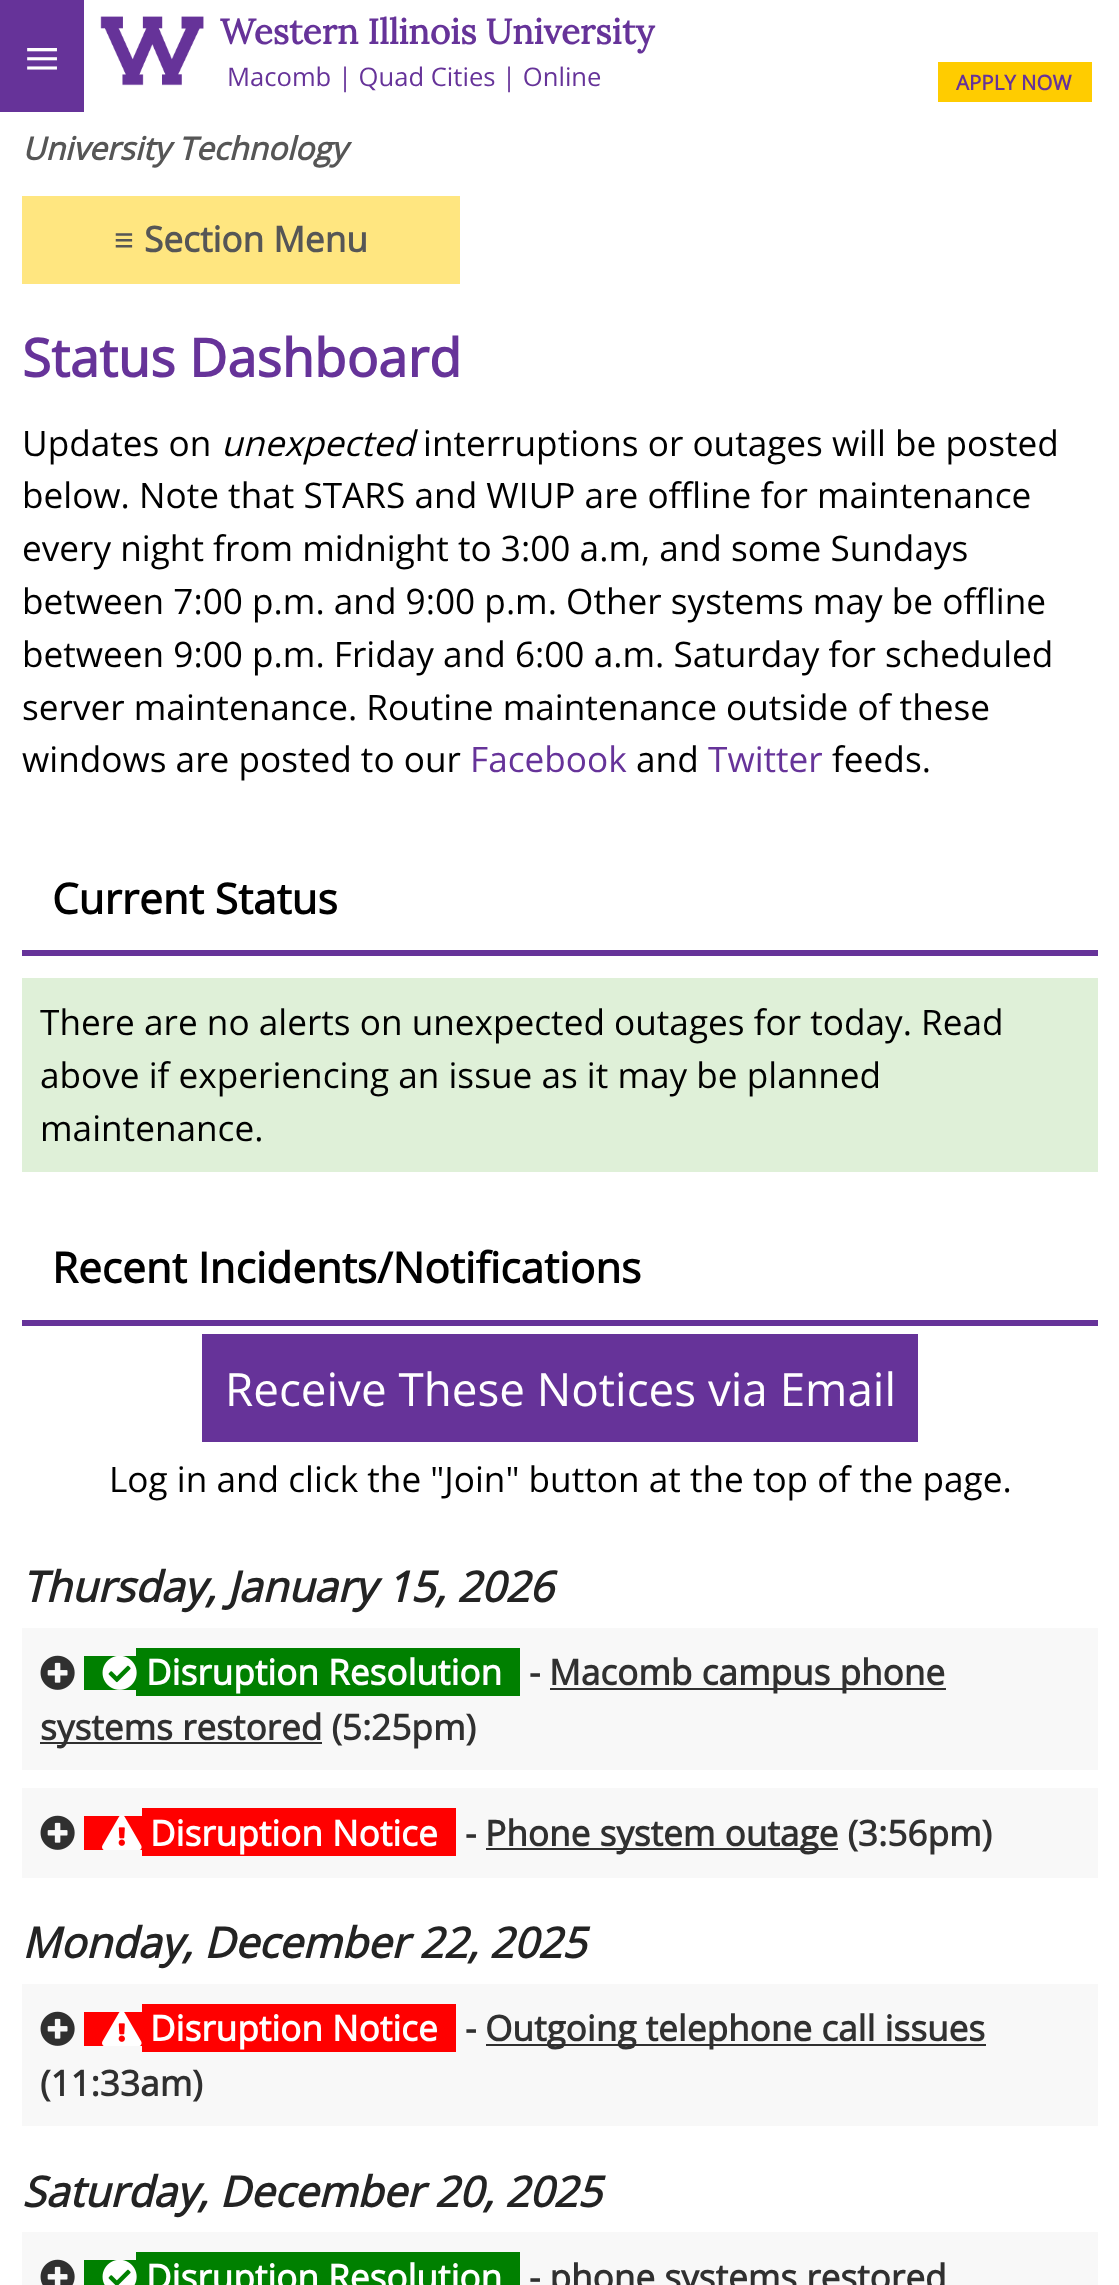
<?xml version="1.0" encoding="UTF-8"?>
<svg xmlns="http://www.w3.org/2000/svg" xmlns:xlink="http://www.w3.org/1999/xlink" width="1119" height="2285">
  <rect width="100%" height="100%" fill="#ffffff" />
  <rect width="84" height="112" fill="#663399" />
  <image x="100" y="16" width="104" height="70" xlink:href="image1.png" />
  <rect x="938" y="62" width="154" height="40" fill="#ffcc00" />
  <rect x="22" y="196" width="438" height="88" fill="#ffe680" />
  <rect x="22" y="950" width="1076" height="6" fill="#663399" />
  <rect x="22" y="978" width="1076" height="194" fill="#dff0d8" />
  <rect x="22" y="1320" width="1076" height="6" fill="#663399" />
  <rect x="202" y="1334" width="716" height="108" fill="#663399" />
  <rect x="22" y="1628" width="1076" height="142" fill="#f8f8f8" />
  <image x="40" y="1655" width="35" height="35" xlink:href="image2.png" />
  <rect x="84" y="1656" width="52" height="34" fill="#008000" />
  <rect x="136" y="1648" width="384" height="48" fill="#008000" />
  <image x="102" y="1656" width="35" height="34" xlink:href="image3.png" />
  <rect x="550" y="1688" width="396" height="2" fill="#303030" />
  <rect x="40" y="1742" width="282" height="2" fill="#303030" />
  <rect x="22" y="1788" width="1076" height="90" fill="#f8f8f8" />
  <image x="40" y="1815" width="35" height="35" xlink:href="image2.png" />
  <rect x="84" y="1816" width="58" height="34" fill="#ff0000" />
  <rect x="142" y="1808" width="314" height="48" fill="#ff0000" />
  <image x="102" y="1815" width="40" height="35" xlink:href="image4.png" />
  <rect x="486" y="1848" width="352" height="2" fill="#303030" />
  <rect x="22" y="1984" width="1076" height="142" fill="#f8f8f8" />
  <image x="40" y="2011" width="35" height="35" xlink:href="image2.png" />
  <rect x="84" y="2012" width="58" height="34" fill="#ff0000" />
  <rect x="142" y="2004" width="314" height="48" fill="#ff0000" />
  <image x="102" y="2011" width="40" height="35" xlink:href="image4.png" />
  <rect x="486" y="2044" width="500" height="2" fill="#303030" />
  <rect x="22" y="2232" width="1076" height="53" fill="#f8f8f8" />
  <image x="40" y="2259" width="35" height="26" xlink:href="image5.png" />
  <rect x="84" y="2260" width="52" height="25" fill="#008000" />
  <rect x="136" y="2252" width="384" height="33" fill="#008000" />
  <image x="102" y="2260" width="35" height="25" xlink:href="image6.png" />
  <text x="24" y="80" style="font-family: Liberation Serif; font-size: 64px; fill: #ffffff">≡</text>
  <text x="220" y="44" style="font-family: Lora; font-size: 35.2px; font-weight: bold; fill: #663399">Western Illinois University</text>
  <text x="227" y="86" style="font-family: Open Sans; font-size: 25.6px; fill: #663399">Macomb | Quad Cities | Online</text>
  <text x="956" y="90" style="font-family: Open Sans; font-size: 20.5px; font-weight: bold; fill: #663399">APPLY NOW</text>
  <text x="22" y="160" style="font-family: Open Sans; font-size: 31.75px; font-weight: bold; font-style: italic; fill: #565656">University Technology</text>
  <text x="114" y="252" style="font-family: Liberation Serif; font-size: 35.2px; font-weight: bold; fill: #565656">≡</text>
  <text x="144" y="252" style="font-family: Open Sans; font-size: 35.2px; font-weight: bold; fill: #565656">Section Menu</text>
  <text x="22" y="377" style="font-family: Open Sans; font-size: 52.75px; font-weight: bold; fill: #663399">Status Dashboard</text>
  <text x="22" y="456" style="font-family: Open Sans; font-size: 35.2px; fill: #000000">Updates on</text>
  <text x="221" y="456" style="font-family: Open Sans; font-size: 35.2px; font-style: italic; fill: #000000">unexpected</text>
  <text x="423" y="456" style="font-family: Open Sans; font-size: 35.2px; fill: #000000">interruptions or outages will be posted</text>
  <text x="22" y="508" style="font-family: Open Sans; font-size: 35.2px; fill: #000000">below. Note that STARS and WIUP are offline for maintenance</text>
  <text x="22" y="561" style="font-family: Open Sans; font-size: 35.2px; fill: #000000">every night from midnight to 3:00 a.m, and some Sundays</text>
  <text x="22" y="614" style="font-family: Open Sans; font-size: 35.2px; fill: #000000">between 7:00 p.m. and 9:00 p.m. Other systems may be offline</text>
  <text x="22" y="667" style="font-family: Open Sans; font-size: 35.2px; fill: #000000">between 9:00 p.m. Friday and 6:00 a.m. Saturday for scheduled</text>
  <text x="22" y="720" style="font-family: Open Sans; font-size: 35.2px; fill: #000000">server maintenance. Routine maintenance outside of these</text>
  <text x="22" y="772" style="font-family: Open Sans; font-size: 35.2px; fill: #000000">windows are posted to our</text>
  <text x="470" y="772" style="font-family: Open Sans; font-size: 35.2px; fill: #663399">Facebook</text>
  <text x="636" y="772" style="font-family: Open Sans; font-size: 35.2px; fill: #000000">and</text>
  <text x="708" y="772" style="font-family: Open Sans; font-size: 35.2px; fill: #663399">Twitter</text>
  <text x="832" y="772" style="font-family: Open Sans; font-size: 35.2px; fill: #000000">feeds.</text>
  <text x="52" y="914" style="font-family: Open Sans; font-size: 42.25px; font-weight: bold; fill: #000000">Current Status</text>
  <text x="40" y="1035" style="font-family: Open Sans; font-size: 35.2px; fill: #000000">There are no alerts on unexpected outages for today. Read</text>
  <text x="40" y="1088" style="font-family: Open Sans; font-size: 35.2px; fill: #000000">above if experiencing an issue as it may be planned</text>
  <text x="40" y="1141" style="font-family: Open Sans; font-size: 35.2px; fill: #000000">maintenance.</text>
  <text x="52" y="1283" style="font-family: Open Sans; font-size: 42.25px; font-weight: bold; fill: #000000">Recent Incidents/Notifications</text>
  <text x="225" y="1406" style="font-family: Open Sans; font-size: 45.75px; fill: #ffffff">Receive These Notices via Email</text>
  <text x="109" y="1492" style="font-family: Open Sans; font-size: 35.2px; fill: #000000">Log in and click the "Join" button at the top of the page.</text>
  <text x="22" y="1602" style="font-family: Open Sans; font-size: 42.25px; font-weight: bold; font-style: italic; fill: #232323">Thursday, January 15, 2026</text>
  <text x="146" y="1685" style="font-family: Open Sans; font-size: 35.2px; font-weight: bold; fill: #ffffff">Disruption Resolution</text>
  <text x="529" y="1685" style="font-family: Open Sans; font-size: 35.2px; font-weight: bold; fill: #303030">-</text>
  <text x="549" y="1685" style="font-family: Open Sans; font-size: 35.2px; font-weight: bold; fill: #303030">Macomb campus phone</text>
  <text x="40" y="1740" style="font-family: Open Sans; font-size: 35.2px; font-weight: bold; fill: #303030">systems restored (5:25pm)</text>
  <text x="150" y="1846" style="font-family: Open Sans; font-size: 35.2px; font-weight: bold; fill: #ffffff">Disruption Notice</text>
  <text x="465" y="1846" style="font-family: Open Sans; font-size: 35.2px; font-weight: bold; fill: #303030">-</text>
  <text x="485" y="1846" style="font-family: Open Sans; font-size: 35.2px; font-weight: bold; fill: #303030">Phone system outage (3:56pm)</text>
  <text x="22" y="1958" style="font-family: Open Sans; font-size: 42.25px; font-weight: bold; font-style: italic; fill: #232323">Monday, December 22, 2025</text>
  <text x="150" y="2041" style="font-family: Open Sans; font-size: 35.2px; font-weight: bold; fill: #ffffff">Disruption Notice</text>
  <text x="465" y="2041" style="font-family: Open Sans; font-size: 35.2px; font-weight: bold; fill: #303030">-</text>
  <text x="485" y="2041" style="font-family: Open Sans; font-size: 35.2px; font-weight: bold; fill: #303030">Outgoing telephone call issues</text>
  <text x="40" y="2096" style="font-family: Open Sans; font-size: 35.2px; font-weight: bold; fill: #303030">(11:33am)</text>
  <text x="22" y="2207" style="font-family: Open Sans; font-size: 42.25px; font-weight: bold; font-style: italic; fill: #232323">Saturday, December 20, 2025</text>
  <text x="146" y="2290" style="font-family: Open Sans; font-size: 35.2px; font-weight: bold; fill: #ffffff">Disruption Resolution</text>
  <text x="529" y="2290" style="font-family: Open Sans; font-size: 35.2px; font-weight: bold; fill: #303030">- phone systems restored</text>
</svg>
